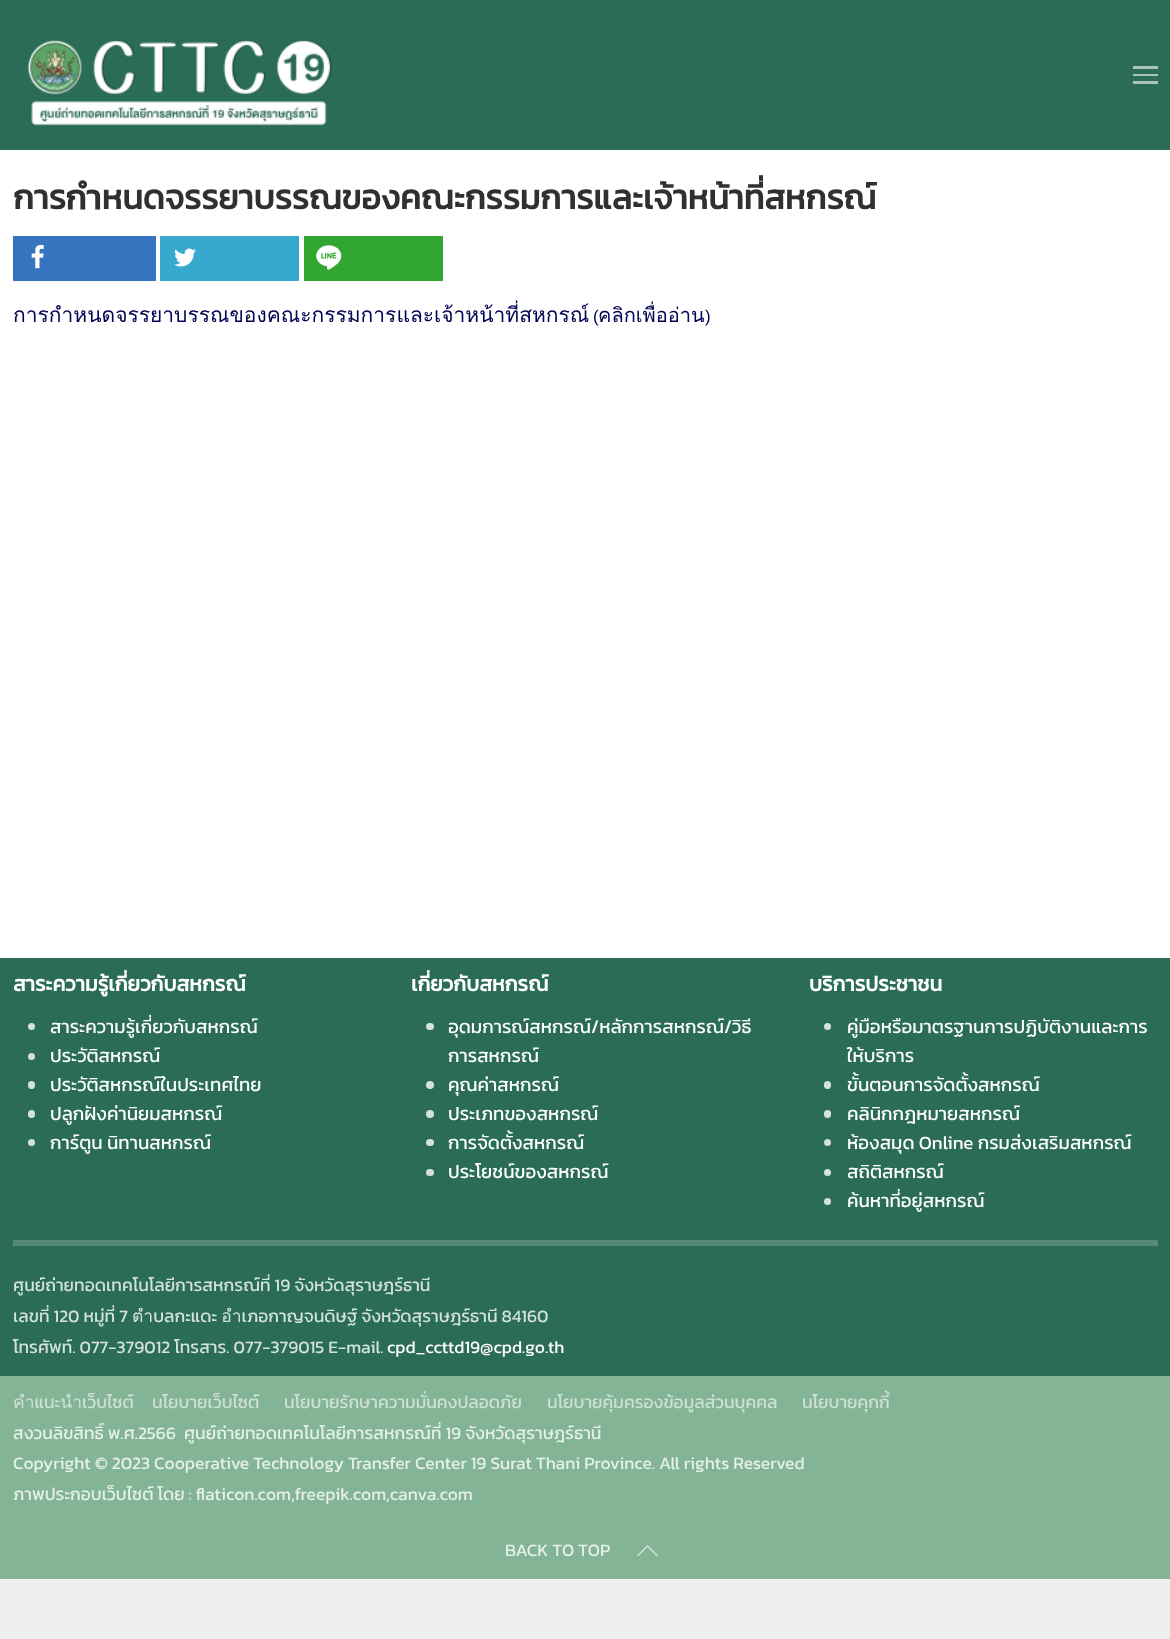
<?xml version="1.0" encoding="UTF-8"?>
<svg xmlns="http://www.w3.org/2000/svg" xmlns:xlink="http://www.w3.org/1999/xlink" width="1170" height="1639">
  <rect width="100%" height="100%" fill="#f0efef" />
  <rect width="1170" height="150" fill="#2a6c55" />
  <image x="27" y="40" width="305" height="86" xlink:href="image1.png" />
  <rect x="1133" y="66" width="25" height="3" fill="#aac4bb" />
  <rect x="1133" y="74" width="25" height="2" fill="#aac4bb" />
  <rect x="1133" y="81" width="25" height="3" fill="#aac4bb" />
  <rect y="150" width="1170" height="808" fill="#ffffff" />
  <rect x="13" y="236" width="143" height="45" fill="#3674c0" />
  <image x="31" y="245" width="13" height="24" xlink:href="image2.png" />
  <rect x="160" y="236" width="139" height="45" fill="#37a9ce" />
  <image x="174" y="248" width="22" height="19" xlink:href="image3.png" />
  <rect x="304" y="236" width="139" height="45" fill="#31a631" />
  <image x="316" y="245" width="26" height="25" xlink:href="image4.png" />
  <rect y="958" width="1170" height="418" fill="#2a6c55" />
  <circle cx="31.5" cy="1026.5" r="3.5" fill="#d4e2dd" />
  <circle cx="31.5" cy="1056.5" r="3.5" fill="#d4e2dd" />
  <rect x="28" y="1081" width="7" height="8" rx="3.5" fill="#d4e2dd" />
  <rect x="28" y="1110" width="7" height="8" rx="3.5" fill="#d4e2dd" />
  <circle cx="31.5" cy="1142.5" r="3.5" fill="#d4e2dd" />
  <rect x="426" y="1023" width="8" height="7" rx="3.5" fill="#d4e2dd" />
  <circle cx="430" cy="1085" r="4" fill="#d4e2dd" />
  <circle cx="430" cy="1114" r="4" fill="#d4e2dd" />
  <rect x="426" y="1139" width="8" height="7" rx="3.5" fill="#d4e2dd" />
  <rect x="426" y="1169" width="8" height="7" rx="3.5" fill="#d4e2dd" />
  <circle cx="827.5" cy="1026.5" r="3.5" fill="#d4e2dd" />
  <rect x="824" y="1081" width="7" height="8" rx="3.5" fill="#d4e2dd" />
  <rect x="824" y="1110" width="7" height="8" rx="3.5" fill="#d4e2dd" />
  <circle cx="827.5" cy="1142.5" r="3.5" fill="#d4e2dd" />
  <circle cx="827.5" cy="1172.5" r="3.5" fill="#d4e2dd" />
  <circle cx="827.5" cy="1201.5" r="3.5" fill="#d4e2dd" />
  <rect x="13" y="1240" width="1145" height="6" fill="#558977" />
  <rect y="1376" width="1170" height="203" fill="#83b495" />
  <path d="M 637.5 1556 l 10 -10 l 10 10" fill="none" stroke="#cde1d5" stroke-width="1.5" />
  <text x="13" y="209" style="font-family: Kanit; font-size: 34px; font-weight: bold; fill: #303030">การกำหนดจรรยาบรรณของคณะกรรมการและเจ้าหน้าที่สหกรณ์</text>
  <text x="13" y="322" style="font-family: Loma; font-size: 21px; fill: #030354">การกำหนดจรรยาบรรณของคณะกรรมการและเจ้าหน้าที่สหกรณ์</text>
  <text x="593" y="322" style="font-family: Liberation Sans; font-size: 17px; fill: #030354">(</text>
  <text x="598" y="322" style="font-family: Loma; font-size: 20px; fill: #030354">คลิกเพื่ออ่าน</text>
  <text x="705" y="322" style="font-family: Liberation Sans; font-size: 17px; fill: #030354">)</text>
  <text x="13" y="991" style="font-family: Kanit; font-size: 21px; font-weight: bold; fill: #ffffff">สาระความรู้เกี่ยวกับสหกรณ์</text>
  <text x="50" y="1033" style="font-family: Kanit; font-size: 18.75px; fill: #ffffff">สาระความรู้เกี่ยวกับสหกรณ์</text>
  <text x="50" y="1062" style="font-family: Kanit; font-size: 18.75px; fill: #ffffff">ประวัติสหกรณ์</text>
  <text x="50" y="1091" style="font-family: Kanit; font-size: 18.75px; fill: #ffffff">ประวัติสหกรณ์ในประเทศไทย</text>
  <text x="50" y="1120" style="font-family: Kanit; font-size: 18.75px; fill: #ffffff">ปลูกฝังค่านิยมสหกรณ์</text>
  <text x="50" y="1149" style="font-family: Kanit; font-size: 18.75px; fill: #ffffff">การ์ตูน นิทานสหกรณ์</text>
  <text x="411" y="991" style="font-family: Kanit; font-size: 21px; font-weight: bold; fill: #ffffff">เกี่ยวกับสหกรณ์</text>
  <text x="448" y="1033" style="font-family: Kanit; font-size: 18.75px; fill: #ffffff">อุดมการณ์สหกรณ์/หลักการสหกรณ์/วิธี</text>
  <text x="448" y="1062" style="font-family: Kanit; font-size: 18.75px; fill: #ffffff">การสหกรณ์</text>
  <text x="448" y="1091" style="font-family: Kanit; font-size: 18.75px; fill: #ffffff">คุณค่าสหกรณ์</text>
  <text x="448" y="1120" style="font-family: Kanit; font-size: 18.75px; fill: #ffffff">ประเภทของสหกรณ์</text>
  <text x="448" y="1149" style="font-family: Kanit; font-size: 18.75px; fill: #ffffff">การจัดตั้งสหกรณ์</text>
  <text x="448" y="1178" style="font-family: Kanit; font-size: 18.75px; fill: #ffffff">ประโยชน์ของสหกรณ์</text>
  <text x="809" y="991" style="font-family: Kanit; font-size: 21px; font-weight: bold; fill: #ffffff">บริการประชาชน</text>
  <text x="847" y="1033" style="font-family: Kanit; font-size: 18.75px; fill: #ffffff">คู่มือหรือมาตรฐานการปฏิบัติงานและการ</text>
  <text x="847" y="1062" style="font-family: Kanit; font-size: 18.75px; fill: #ffffff">ให้บริการ</text>
  <text x="847" y="1091" style="font-family: Kanit; font-size: 18.75px; fill: #ffffff">ขั้นตอนการจัดตั้งสหกรณ์</text>
  <text x="847" y="1120" style="font-family: Kanit; font-size: 18.75px; fill: #ffffff">คลินิกกฎหมายสหกรณ์</text>
  <text x="847" y="1149" style="font-family: Kanit; font-size: 18.75px; fill: #ffffff">ห้องสมุด Online กรมส่งเสริมสหกรณ์</text>
  <text x="847" y="1178" style="font-family: Kanit; font-size: 18.75px; fill: #ffffff">สถิติสหกรณ์</text>
  <text x="847" y="1207" style="font-family: Kanit; font-size: 18.75px; fill: #ffffff">ค้นหาที่อยู่สหกรณ์</text>
  <text x="13" y="1291" style="font-family: Kanit; font-size: 17.5px; fill: #d4e2dd">ศูนย์ถ่ายทอดเทคโนโลยีการสหกรณ์ที่ 19 จังหวัดสุราษฎร์ธานี</text>
  <text x="13" y="1322" style="font-family: Kanit; font-size: 17.5px; fill: #d4e2dd">เลขที่ 120 หมู่ที่ 7 ตำบลกะแดะ อำเภอกาญจนดิษฐ์ จังหวัดสุราษฎร์ธานี 84160</text>
  <text x="13" y="1353" style="font-family: Kanit; font-size: 17.5px; fill: #d4e2dd">โทรศัพท์. 077-379012 โทรสาร. 077-379015 E-mail.</text>
  <text x="387" y="1353" style="font-family: Kanit; font-size: 17.5px; fill: #ffffff">cpd_ccttd19@cpd.go.th</text>
  <text x="13" y="1408" style="font-family: Kanit; font-size: 17.5px; fill: #cde1d5">คำแนะนำเว็บไซต์</text>
  <text x="152" y="1408" style="font-family: Kanit; font-size: 17.5px; fill: #cde1d5">นโยบายเว็บไซต์</text>
  <text x="284" y="1408" style="font-family: Kanit; font-size: 17.5px; fill: #cde1d5">นโยบายรักษาความมั่นคงปลอดภัย</text>
  <text x="547" y="1408" style="font-family: Kanit; font-size: 17.5px; fill: #cde1d5">นโยบายคุ้มครองข้อมูลส่วนบุคคล</text>
  <text x="802" y="1408" style="font-family: Kanit; font-size: 17.5px; fill: #cde1d5">นโยบายคุกกี้</text>
  <text x="13" y="1439" style="font-family: Kanit; font-size: 17.5px; fill: #e6f0ea" xml:space="preserve">สงวนลิขสิทธิ์ พ.ศ.2566  ศูนย์ถ่ายทอดเทคโนโลยีการสหกรณ์ที่ 19 จังหวัดสุราษฎร์ธานี</text>
  <text x="13" y="1469" style="font-family: Kanit; font-size: 17.5px; fill: #e6f0ea">Copyright © 2023 Cooperative Technology Transfer Center 19 Surat Thani Province. All rights Reserved</text>
  <text x="13" y="1500" style="font-family: Kanit; font-size: 17.5px; fill: #e6f0ea">ภาพประกอบเว็บไซต์ โดย : flaticon.com,freepik.com,canva.com</text>
  <text x="505" y="1556" style="font-family: Kanit; font-size: 17.5px; fill: #e6f0ea">BACK TO TOP</text>
</svg>
